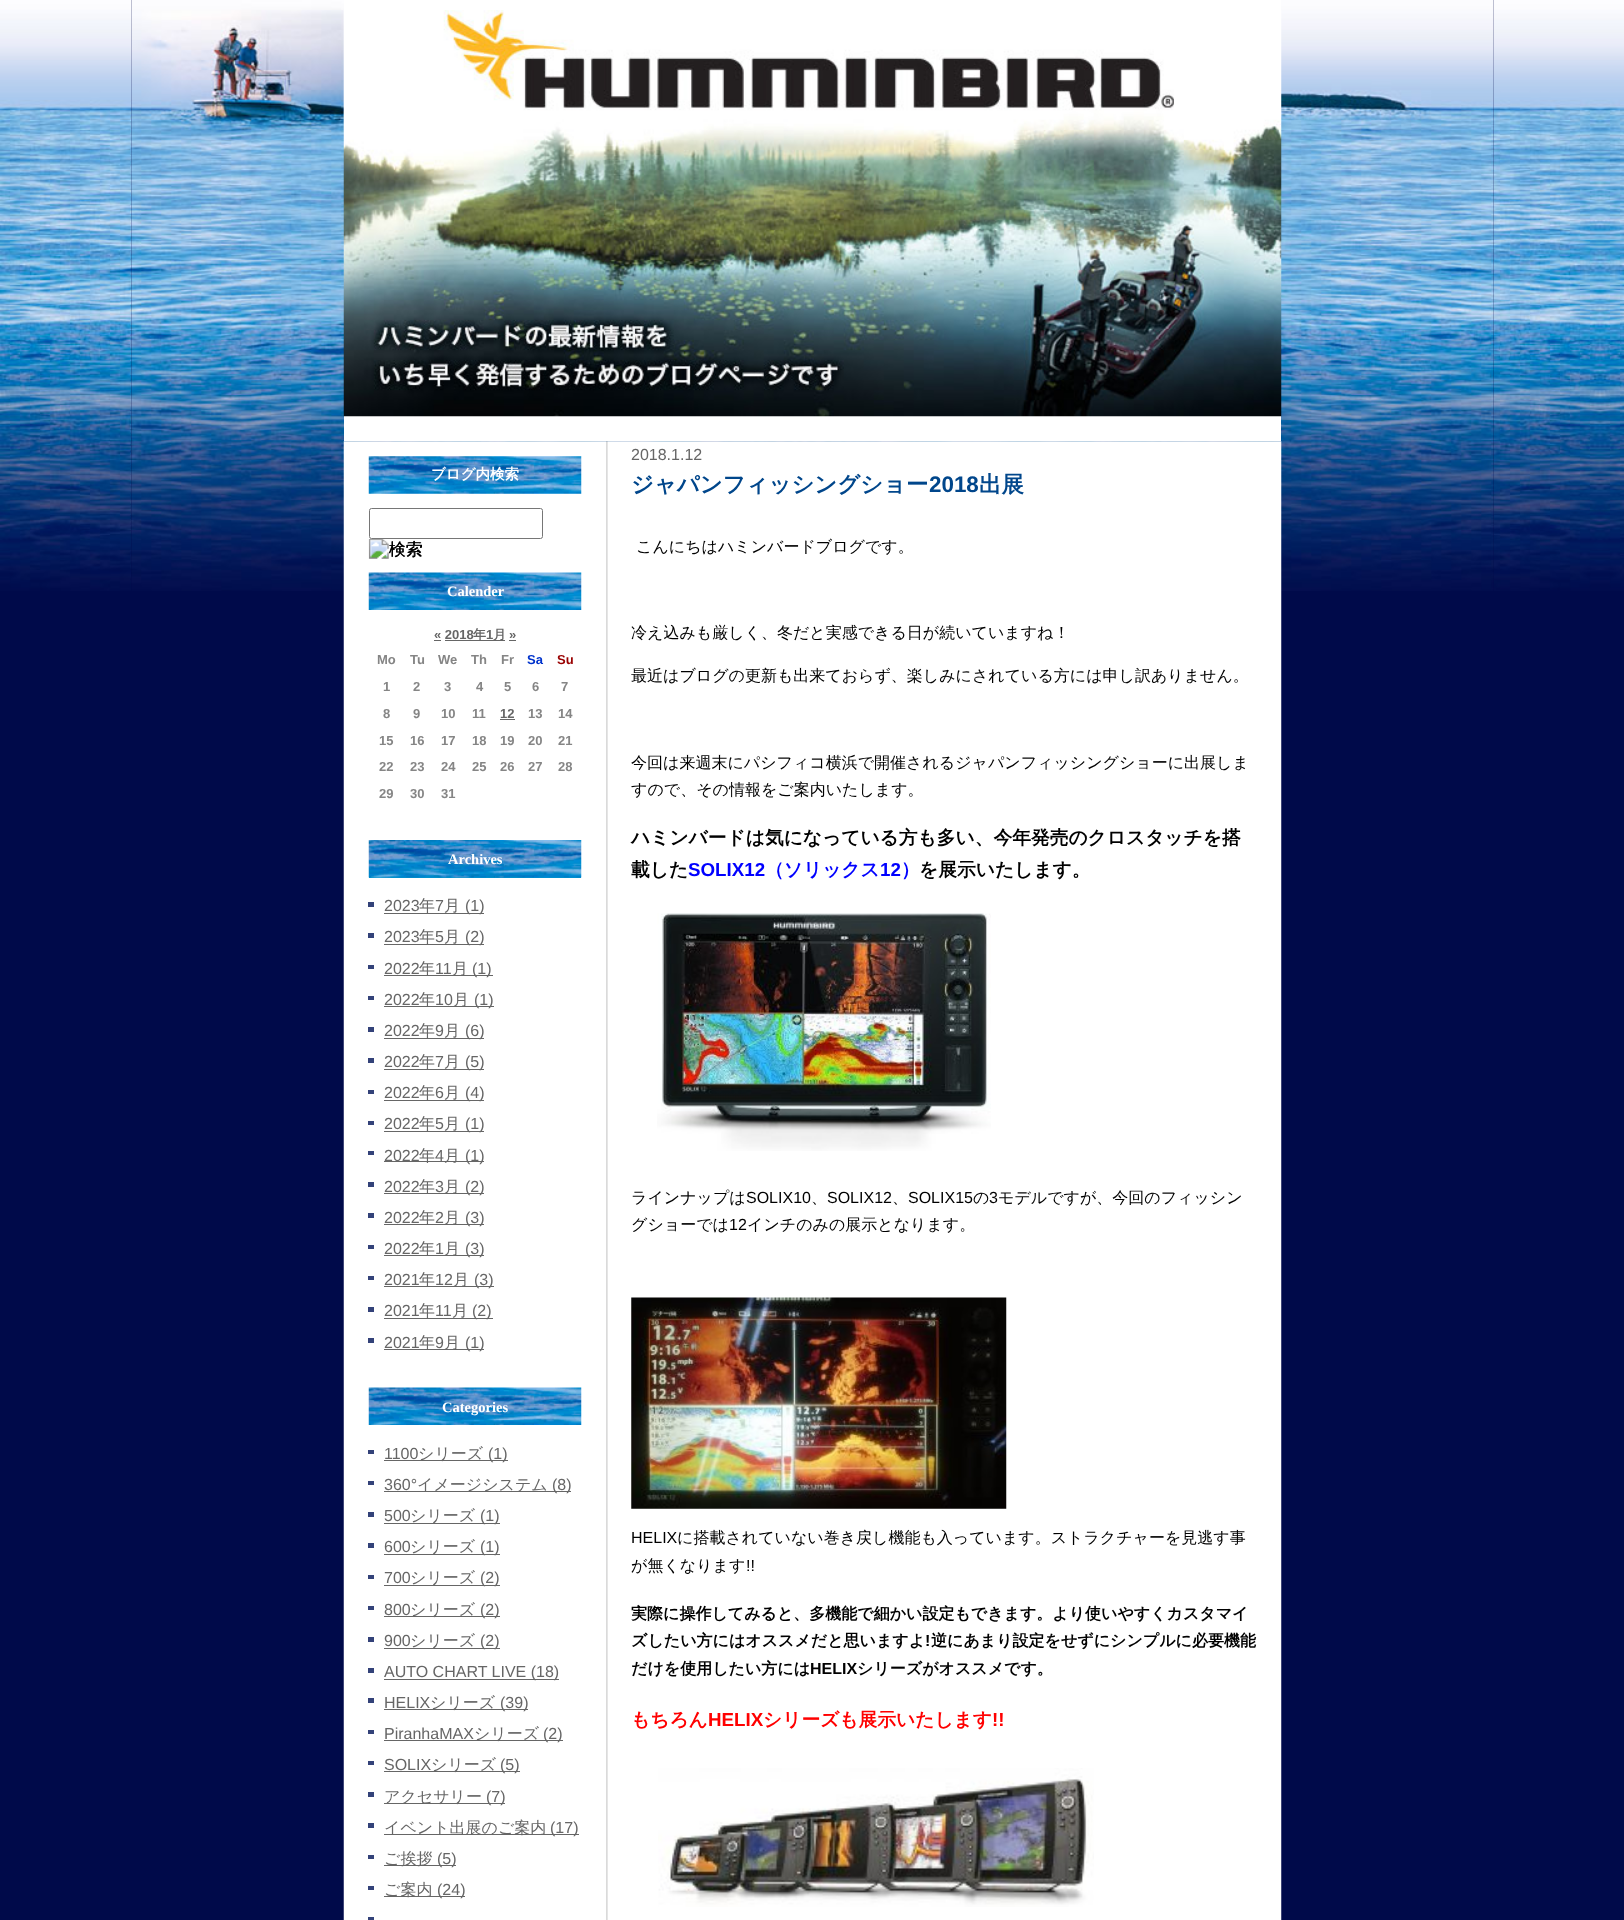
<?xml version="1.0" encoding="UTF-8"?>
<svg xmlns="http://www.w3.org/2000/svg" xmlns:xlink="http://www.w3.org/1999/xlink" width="1624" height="1920">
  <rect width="100%" height="100%" fill="#000a4a" />
  <image x="0" y="0" width="1624" height="591" xlink:href="image1.png" />
  <rect x="131" width="1363" height="591" fill="#000a4a" />
  <image x="131" y="0" width="1363" height="591" xlink:href="image2.png" />
  <rect x="344" width="937" height="441" fill="#ffffff" />
  <image x="343" y="10" width="939" height="407" xlink:href="image3.png" />
  <image x="343" y="441" width="939" height="1479" xlink:href="image4.png" />
  <image x="368" y="456" width="214" height="38" xlink:href="image5.png" />
  <rect x="369.5" y="508.5" width="173" height="30" rx="2" fill="none" stroke="#767676" />
  <image x="368" y="538" width="54" height="21" xlink:href="image6.png" />
  <image x="368" y="572" width="214" height="38" xlink:href="image7.png" />
  <rect x="434" y="640" width="7" height="1" fill="#666666" />
  <rect x="445" y="640" width="60" height="1" fill="#666666" />
  <rect x="509" y="640" width="7" height="1" fill="#666666" />
  <rect x="500" y="719" width="15" height="1" fill="#666666" />
  <rect x="369" y="877" width="212" height="1" fill="#0099cc" />
  <image x="368" y="840" width="214" height="38" xlink:href="image8.png" />
  <rect x="368" y="902" width="6" height="5" fill="#334279" />
  <rect x="384" y="913" width="100" height="1" fill="#666666" />
  <rect x="368" y="933" width="6" height="5" fill="#334279" />
  <rect x="384" y="944" width="100" height="1" fill="#666666" />
  <rect x="368" y="965" width="6" height="4" fill="#334279" />
  <rect x="384" y="975" width="109" height="1" fill="#666666" />
  <rect x="368" y="996" width="6" height="4" fill="#334279" />
  <rect x="384" y="1006" width="110" height="1" fill="#666666" />
  <rect x="368" y="1027" width="6" height="5" fill="#334279" />
  <rect x="384" y="1038" width="100" height="1" fill="#666666" />
  <rect x="368" y="1058" width="6" height="5" fill="#334279" />
  <rect x="384" y="1069" width="100" height="1" fill="#666666" />
  <rect x="368" y="1090" width="6" height="4" fill="#334279" />
  <rect x="384" y="1100" width="100" height="1" fill="#666666" />
  <rect x="368" y="1121" width="6" height="4" fill="#334279" />
  <rect x="384" y="1131" width="100" height="1" fill="#666666" />
  <rect x="368" y="1151" width="6" height="4" fill="#334279" />
  <rect x="384" y="1161" width="100" height="1" fill="#666666" />
  <rect x="368" y="1182" width="6" height="5" fill="#334279" />
  <rect x="384" y="1193" width="100" height="1" fill="#666666" />
  <rect x="368" y="1213" width="6" height="5" fill="#334279" />
  <rect x="384" y="1224" width="100" height="1" fill="#666666" />
  <rect x="368" y="1245" width="6" height="4" fill="#334279" />
  <rect x="384" y="1255" width="100" height="1" fill="#666666" />
  <rect x="368" y="1276" width="6" height="4" fill="#334279" />
  <rect x="384" y="1286" width="110" height="1" fill="#666666" />
  <rect x="368" y="1307" width="6" height="5" fill="#334279" />
  <rect x="384" y="1318" width="109" height="1" fill="#666666" />
  <rect x="368" y="1338" width="6" height="5" fill="#334279" />
  <rect x="384" y="1349" width="100" height="1" fill="#666666" />
  <image x="368" y="1387" width="214" height="38" xlink:href="image9.png" />
  <rect x="368" y="1450" width="6" height="4" fill="#334279" />
  <rect x="384" y="1460" width="124" height="1" fill="#666666" />
  <rect x="368" y="1481" width="6" height="4" fill="#334279" />
  <rect x="384" y="1491" width="187" height="1" fill="#666666" />
  <rect x="368" y="1512" width="6" height="5" fill="#334279" />
  <rect x="384" y="1523" width="116" height="1" fill="#666666" />
  <rect x="368" y="1543" width="6" height="5" fill="#334279" />
  <rect x="384" y="1554" width="116" height="1" fill="#666666" />
  <rect x="368" y="1575" width="6" height="4" fill="#334279" />
  <rect x="384" y="1585" width="116" height="1" fill="#666666" />
  <rect x="368" y="1606" width="6" height="4" fill="#334279" />
  <rect x="384" y="1616" width="116" height="1" fill="#666666" />
  <rect x="368" y="1637" width="6" height="5" fill="#334279" />
  <rect x="384" y="1648" width="116" height="1" fill="#666666" />
  <rect x="368" y="1668" width="6" height="5" fill="#334279" />
  <rect x="384" y="1679" width="175" height="1" fill="#666666" />
  <rect x="368" y="1698" width="6" height="5" fill="#334279" />
  <rect x="384" y="1709" width="144" height="1" fill="#666666" />
  <rect x="368" y="1730" width="6" height="4" fill="#334279" />
  <rect x="384" y="1740" width="179" height="1" fill="#666666" />
  <rect x="368" y="1761" width="6" height="4" fill="#334279" />
  <rect x="384" y="1771" width="136" height="1" fill="#666666" />
  <rect x="368" y="1792" width="6" height="5" fill="#334279" />
  <rect x="384" y="1803" width="121" height="1" fill="#666666" />
  <rect x="368" y="1823" width="6" height="5" fill="#334279" />
  <rect x="384" y="1834" width="195" height="1" fill="#666666" />
  <rect x="368" y="1855" width="6" height="4" fill="#334279" />
  <rect x="384" y="1865" width="72" height="1" fill="#666666" />
  <rect x="368" y="1886" width="6" height="4" fill="#334279" />
  <rect x="384" y="1896" width="81" height="1" fill="#666666" />
  <rect x="368" y="1917" width="6" height="3" fill="#334279" />
  <image x="657" y="913" width="334" height="238" xlink:href="image10.png" />
  <image x="631" y="1297" width="376" height="212" xlink:href="image11.png" />
  <image x="658" y="1768" width="436" height="139" xlink:href="image12.png" />
  <text x="431" y="479" style="font-family: WenQuanYi Zen Hei; font-size: 14.5px; font-weight: bold; fill: #ffffff">ブログ内検索</text>
  <text x="389" y="555" style="font-family: WenQuanYi Zen Hei; font-size: 17px; font-weight: 500; fill: #000000">検索</text>
  <text x="447" y="596" style="font-family: Liberation Serif; font-size: 14.5px; font-weight: bold; fill: #ffffff">Calender</text>
  <text x="434" y="639" style="font-family: Liberation Sans; font-size: 13px; font-weight: bold; fill: #666666">« 2018</text>
  <text x="473" y="639" style="font-family: WenQuanYi Zen Hei; font-size: 13px; font-weight: bold; fill: #666666">年</text>
  <text x="486" y="639" style="font-family: Liberation Sans; font-size: 13px; font-weight: bold; fill: #666666">1</text>
  <text x="493" y="639" style="font-family: WenQuanYi Zen Hei; font-size: 13px; font-weight: bold; fill: #666666">月</text>
  <text x="509" y="639" style="font-family: Liberation Sans; font-size: 13px; font-weight: bold; fill: #666666">»</text>
  <text x="377" y="664" style="font-family: Liberation Sans; font-size: 13px; font-weight: bold; fill: #858585">Mo</text>
  <text x="410" y="664" style="font-family: Liberation Sans; font-size: 13px; font-weight: bold; fill: #858585">Tu</text>
  <text x="438" y="664" style="font-family: Liberation Sans; font-size: 13px; font-weight: bold; fill: #858585">We</text>
  <text x="471" y="664" style="font-family: Liberation Sans; font-size: 13px; font-weight: bold; fill: #858585">Th</text>
  <text x="501" y="664" style="font-family: Liberation Sans; font-size: 13px; font-weight: bold; fill: #858585">Fr</text>
  <text x="527" y="664" style="font-family: Liberation Sans; font-size: 13px; font-weight: bold; fill: #0033cc">Sa</text>
  <text x="557" y="664" style="font-family: Liberation Sans; font-size: 13px; font-weight: bold; fill: #990000">Su</text>
  <text x="383" y="691" style="font-family: Liberation Sans; font-size: 13px; font-weight: bold; fill: #858585">1</text>
  <text x="413" y="691" style="font-family: Liberation Sans; font-size: 13px; font-weight: bold; fill: #858585">2</text>
  <text x="444" y="691" style="font-family: Liberation Sans; font-size: 13px; font-weight: bold; fill: #858585">3</text>
  <text x="476" y="691" style="font-family: Liberation Sans; font-size: 13px; font-weight: bold; fill: #858585">4</text>
  <text x="504" y="691" style="font-family: Liberation Sans; font-size: 13px; font-weight: bold; fill: #858585">5</text>
  <text x="532" y="691" style="font-family: Liberation Sans; font-size: 13px; font-weight: bold; fill: #858585">6</text>
  <text x="561" y="691" style="font-family: Liberation Sans; font-size: 13px; font-weight: bold; fill: #858585">7</text>
  <text x="383" y="718" style="font-family: Liberation Sans; font-size: 13px; font-weight: bold; fill: #858585">8</text>
  <text x="413" y="718" style="font-family: Liberation Sans; font-size: 13px; font-weight: bold; fill: #858585">9</text>
  <text x="441" y="718" style="font-family: Liberation Sans; font-size: 13px; font-weight: bold; fill: #858585">10</text>
  <text x="472" y="718" style="font-family: Liberation Sans; font-size: 13px; font-weight: bold; fill: #858585">11</text>
  <text x="500" y="718" style="font-family: Liberation Sans; font-size: 13px; font-weight: bold; fill: #666666">12</text>
  <text x="528" y="718" style="font-family: Liberation Sans; font-size: 13px; font-weight: bold; fill: #858585">13</text>
  <text x="558" y="718" style="font-family: Liberation Sans; font-size: 13px; font-weight: bold; fill: #858585">14</text>
  <text x="379" y="745" style="font-family: Liberation Sans; font-size: 13px; font-weight: bold; fill: #858585">15</text>
  <text x="410" y="745" style="font-family: Liberation Sans; font-size: 13px; font-weight: bold; fill: #858585">16</text>
  <text x="441" y="745" style="font-family: Liberation Sans; font-size: 13px; font-weight: bold; fill: #858585">17</text>
  <text x="472" y="745" style="font-family: Liberation Sans; font-size: 13px; font-weight: bold; fill: #858585">18</text>
  <text x="500" y="745" style="font-family: Liberation Sans; font-size: 13px; font-weight: bold; fill: #858585">19</text>
  <text x="528" y="745" style="font-family: Liberation Sans; font-size: 13px; font-weight: bold; fill: #858585">20</text>
  <text x="558" y="745" style="font-family: Liberation Sans; font-size: 13px; font-weight: bold; fill: #858585">21</text>
  <text x="379" y="771" style="font-family: Liberation Sans; font-size: 13px; font-weight: bold; fill: #858585">22</text>
  <text x="410" y="771" style="font-family: Liberation Sans; font-size: 13px; font-weight: bold; fill: #858585">23</text>
  <text x="441" y="771" style="font-family: Liberation Sans; font-size: 13px; font-weight: bold; fill: #858585">24</text>
  <text x="472" y="771" style="font-family: Liberation Sans; font-size: 13px; font-weight: bold; fill: #858585">25</text>
  <text x="500" y="771" style="font-family: Liberation Sans; font-size: 13px; font-weight: bold; fill: #858585">26</text>
  <text x="528" y="771" style="font-family: Liberation Sans; font-size: 13px; font-weight: bold; fill: #858585">27</text>
  <text x="558" y="771" style="font-family: Liberation Sans; font-size: 13px; font-weight: bold; fill: #858585">28</text>
  <text x="379" y="798" style="font-family: Liberation Sans; font-size: 13px; font-weight: bold; fill: #858585">29</text>
  <text x="410" y="798" style="font-family: Liberation Sans; font-size: 13px; font-weight: bold; fill: #858585">30</text>
  <text x="441" y="798" style="font-family: Liberation Sans; font-size: 13px; font-weight: bold; fill: #858585">31</text>
  <text x="448" y="864" style="font-family: Liberation Serif; font-size: 14.5px; font-weight: bold; fill: #ffffff">Archives</text>
  <text x="384" y="911" style="font-family: Liberation Sans; font-size: 16px; fill: #666666">2023</text>
  <text x="419" y="911" style="font-family: WenQuanYi Zen Hei; font-size: 16px; font-weight: 500; fill: #666666">年</text>
  <text x="435" y="911" style="font-family: Liberation Sans; font-size: 16px; fill: #666666">7</text>
  <text x="444" y="911" style="font-family: WenQuanYi Zen Hei; font-size: 16px; font-weight: 500; fill: #666666">月</text>
  <text x="465" y="911" style="font-family: Liberation Sans; font-size: 16px; fill: #666666">(1)</text>
  <text x="384" y="942" style="font-family: Liberation Sans; font-size: 16px; fill: #666666">2023</text>
  <text x="419" y="942" style="font-family: WenQuanYi Zen Hei; font-size: 16px; font-weight: 500; fill: #666666">年</text>
  <text x="435" y="942" style="font-family: Liberation Sans; font-size: 16px; fill: #666666">5</text>
  <text x="444" y="942" style="font-family: WenQuanYi Zen Hei; font-size: 16px; font-weight: 500; fill: #666666">月</text>
  <text x="465" y="942" style="font-family: Liberation Sans; font-size: 16px; fill: #666666">(2)</text>
  <text x="384" y="974" style="font-family: Liberation Sans; font-size: 16px; fill: #666666">2022</text>
  <text x="419" y="974" style="font-family: WenQuanYi Zen Hei; font-size: 16px; font-weight: 500; fill: #666666">年</text>
  <text x="435" y="974" style="font-family: Liberation Sans; font-size: 16px; fill: #666666">11</text>
  <text x="452" y="974" style="font-family: WenQuanYi Zen Hei; font-size: 16px; font-weight: 500; fill: #666666">月</text>
  <text x="472" y="974" style="font-family: Liberation Sans; font-size: 16px; fill: #666666">(1)</text>
  <text x="384" y="1005" style="font-family: Liberation Sans; font-size: 16px; fill: #666666">2022</text>
  <text x="419" y="1005" style="font-family: WenQuanYi Zen Hei; font-size: 16px; font-weight: 500; fill: #666666">年</text>
  <text x="435" y="1005" style="font-family: Liberation Sans; font-size: 16px; fill: #666666">10</text>
  <text x="453" y="1005" style="font-family: WenQuanYi Zen Hei; font-size: 16px; font-weight: 500; fill: #666666">月</text>
  <text x="474" y="1005" style="font-family: Liberation Sans; font-size: 16px; fill: #666666">(1)</text>
  <text x="384" y="1036" style="font-family: Liberation Sans; font-size: 16px; fill: #666666">2022</text>
  <text x="419" y="1036" style="font-family: WenQuanYi Zen Hei; font-size: 16px; font-weight: 500; fill: #666666">年</text>
  <text x="435" y="1036" style="font-family: Liberation Sans; font-size: 16px; fill: #666666">9</text>
  <text x="444" y="1036" style="font-family: WenQuanYi Zen Hei; font-size: 16px; font-weight: 500; fill: #666666">月</text>
  <text x="465" y="1036" style="font-family: Liberation Sans; font-size: 16px; fill: #666666">(6)</text>
  <text x="384" y="1067" style="font-family: Liberation Sans; font-size: 16px; fill: #666666">2022</text>
  <text x="419" y="1067" style="font-family: WenQuanYi Zen Hei; font-size: 16px; font-weight: 500; fill: #666666">年</text>
  <text x="435" y="1067" style="font-family: Liberation Sans; font-size: 16px; fill: #666666">7</text>
  <text x="444" y="1067" style="font-family: WenQuanYi Zen Hei; font-size: 16px; font-weight: 500; fill: #666666">月</text>
  <text x="465" y="1067" style="font-family: Liberation Sans; font-size: 16px; fill: #666666">(5)</text>
  <text x="384" y="1098" style="font-family: Liberation Sans; font-size: 16px; fill: #666666">2022</text>
  <text x="419" y="1098" style="font-family: WenQuanYi Zen Hei; font-size: 16px; font-weight: 500; fill: #666666">年</text>
  <text x="435" y="1098" style="font-family: Liberation Sans; font-size: 16px; fill: #666666">6</text>
  <text x="444" y="1098" style="font-family: WenQuanYi Zen Hei; font-size: 16px; font-weight: 500; fill: #666666">月</text>
  <text x="465" y="1098" style="font-family: Liberation Sans; font-size: 16px; fill: #666666">(4)</text>
  <text x="384" y="1129" style="font-family: Liberation Sans; font-size: 16px; fill: #666666">2022</text>
  <text x="419" y="1129" style="font-family: WenQuanYi Zen Hei; font-size: 16px; font-weight: 500; fill: #666666">年</text>
  <text x="435" y="1129" style="font-family: Liberation Sans; font-size: 16px; fill: #666666">5</text>
  <text x="444" y="1129" style="font-family: WenQuanYi Zen Hei; font-size: 16px; font-weight: 500; fill: #666666">月</text>
  <text x="465" y="1129" style="font-family: Liberation Sans; font-size: 16px; fill: #666666">(1)</text>
  <text x="384" y="1161" style="font-family: Liberation Sans; font-size: 16px; fill: #666666">2022</text>
  <text x="419" y="1161" style="font-family: WenQuanYi Zen Hei; font-size: 16px; font-weight: 500; fill: #666666">年</text>
  <text x="435" y="1161" style="font-family: Liberation Sans; font-size: 16px; fill: #666666">4</text>
  <text x="444" y="1161" style="font-family: WenQuanYi Zen Hei; font-size: 16px; font-weight: 500; fill: #666666">月</text>
  <text x="465" y="1161" style="font-family: Liberation Sans; font-size: 16px; fill: #666666">(1)</text>
  <text x="384" y="1192" style="font-family: Liberation Sans; font-size: 16px; fill: #666666">2022</text>
  <text x="419" y="1192" style="font-family: WenQuanYi Zen Hei; font-size: 16px; font-weight: 500; fill: #666666">年</text>
  <text x="435" y="1192" style="font-family: Liberation Sans; font-size: 16px; fill: #666666">3</text>
  <text x="444" y="1192" style="font-family: WenQuanYi Zen Hei; font-size: 16px; font-weight: 500; fill: #666666">月</text>
  <text x="465" y="1192" style="font-family: Liberation Sans; font-size: 16px; fill: #666666">(2)</text>
  <text x="384" y="1223" style="font-family: Liberation Sans; font-size: 16px; fill: #666666">2022</text>
  <text x="419" y="1223" style="font-family: WenQuanYi Zen Hei; font-size: 16px; font-weight: 500; fill: #666666">年</text>
  <text x="435" y="1223" style="font-family: Liberation Sans; font-size: 16px; fill: #666666">2</text>
  <text x="444" y="1223" style="font-family: WenQuanYi Zen Hei; font-size: 16px; font-weight: 500; fill: #666666">月</text>
  <text x="465" y="1223" style="font-family: Liberation Sans; font-size: 16px; fill: #666666">(3)</text>
  <text x="384" y="1254" style="font-family: Liberation Sans; font-size: 16px; fill: #666666">2022</text>
  <text x="419" y="1254" style="font-family: WenQuanYi Zen Hei; font-size: 16px; font-weight: 500; fill: #666666">年</text>
  <text x="435" y="1254" style="font-family: Liberation Sans; font-size: 16px; fill: #666666">1</text>
  <text x="444" y="1254" style="font-family: WenQuanYi Zen Hei; font-size: 16px; font-weight: 500; fill: #666666">月</text>
  <text x="465" y="1254" style="font-family: Liberation Sans; font-size: 16px; fill: #666666">(3)</text>
  <text x="384" y="1285" style="font-family: Liberation Sans; font-size: 16px; fill: #666666">2021</text>
  <text x="419" y="1285" style="font-family: WenQuanYi Zen Hei; font-size: 16px; font-weight: 500; fill: #666666">年</text>
  <text x="435" y="1285" style="font-family: Liberation Sans; font-size: 16px; fill: #666666">12</text>
  <text x="453" y="1285" style="font-family: WenQuanYi Zen Hei; font-size: 16px; font-weight: 500; fill: #666666">月</text>
  <text x="474" y="1285" style="font-family: Liberation Sans; font-size: 16px; fill: #666666">(3)</text>
  <text x="384" y="1316" style="font-family: Liberation Sans; font-size: 16px; fill: #666666">2021</text>
  <text x="419" y="1316" style="font-family: WenQuanYi Zen Hei; font-size: 16px; font-weight: 500; fill: #666666">年</text>
  <text x="435" y="1316" style="font-family: Liberation Sans; font-size: 16px; fill: #666666">11</text>
  <text x="452" y="1316" style="font-family: WenQuanYi Zen Hei; font-size: 16px; font-weight: 500; fill: #666666">月</text>
  <text x="472" y="1316" style="font-family: Liberation Sans; font-size: 16px; fill: #666666">(2)</text>
  <text x="384" y="1348" style="font-family: Liberation Sans; font-size: 16px; fill: #666666">2021</text>
  <text x="419" y="1348" style="font-family: WenQuanYi Zen Hei; font-size: 16px; font-weight: 500; fill: #666666">年</text>
  <text x="435" y="1348" style="font-family: Liberation Sans; font-size: 16px; fill: #666666">9</text>
  <text x="444" y="1348" style="font-family: WenQuanYi Zen Hei; font-size: 16px; font-weight: 500; fill: #666666">月</text>
  <text x="465" y="1348" style="font-family: Liberation Sans; font-size: 16px; fill: #666666">(1)</text>
  <text x="442" y="1412" style="font-family: Liberation Serif; font-size: 14.5px; font-weight: bold; fill: #ffffff">Categories</text>
  <text x="384" y="1459" style="font-family: Liberation Sans; font-size: 16px; fill: #666666">1100</text>
  <text x="418" y="1459" style="font-family: WenQuanYi Zen Hei; font-size: 16px; font-weight: 500; fill: #666666">シリーズ</text>
  <text x="488" y="1459" style="font-family: Liberation Sans; font-size: 16px; fill: #666666">(1)</text>
  <text x="384" y="1490" style="font-family: Liberation Sans; font-size: 16px; fill: #666666">360°</text>
  <text x="417" y="1490" style="font-family: WenQuanYi Zen Hei; font-size: 16px; font-weight: 500; fill: #666666">イメージシステム</text>
  <text x="552" y="1490" style="font-family: Liberation Sans; font-size: 16px; fill: #666666">(8)</text>
  <text x="384" y="1521" style="font-family: Liberation Sans; font-size: 16px; fill: #666666">500</text>
  <text x="410" y="1521" style="font-family: WenQuanYi Zen Hei; font-size: 16px; font-weight: 500; fill: #666666">シリーズ</text>
  <text x="480" y="1521" style="font-family: Liberation Sans; font-size: 16px; fill: #666666">(1)</text>
  <text x="384" y="1552" style="font-family: Liberation Sans; font-size: 16px; fill: #666666">600</text>
  <text x="410" y="1552" style="font-family: WenQuanYi Zen Hei; font-size: 16px; font-weight: 500; fill: #666666">シリーズ</text>
  <text x="480" y="1552" style="font-family: Liberation Sans; font-size: 16px; fill: #666666">(1)</text>
  <text x="384" y="1583" style="font-family: Liberation Sans; font-size: 16px; fill: #666666">700</text>
  <text x="410" y="1583" style="font-family: WenQuanYi Zen Hei; font-size: 16px; font-weight: 500; fill: #666666">シリーズ</text>
  <text x="480" y="1583" style="font-family: Liberation Sans; font-size: 16px; fill: #666666">(2)</text>
  <text x="384" y="1615" style="font-family: Liberation Sans; font-size: 16px; fill: #666666">800</text>
  <text x="410" y="1615" style="font-family: WenQuanYi Zen Hei; font-size: 16px; font-weight: 500; fill: #666666">シリーズ</text>
  <text x="480" y="1615" style="font-family: Liberation Sans; font-size: 16px; fill: #666666">(2)</text>
  <text x="384" y="1646" style="font-family: Liberation Sans; font-size: 16px; fill: #666666">900</text>
  <text x="410" y="1646" style="font-family: WenQuanYi Zen Hei; font-size: 16px; font-weight: 500; fill: #666666">シリーズ</text>
  <text x="480" y="1646" style="font-family: Liberation Sans; font-size: 16px; fill: #666666">(2)</text>
  <text x="384" y="1677" style="font-family: Liberation Sans; font-size: 16px; fill: #666666">AUTO CHART LIVE (18)</text>
  <text x="384" y="1708" style="font-family: Liberation Sans; font-size: 16px; fill: #666666">HELIX</text>
  <text x="430" y="1708" style="font-family: WenQuanYi Zen Hei; font-size: 16px; font-weight: 500; fill: #666666">シリーズ</text>
  <text x="500" y="1708" style="font-family: Liberation Sans; font-size: 16px; fill: #666666">(39)</text>
  <text x="384" y="1739" style="font-family: Liberation Sans; font-size: 16px; fill: #666666">PiranhaMAX</text>
  <text x="474" y="1739" style="font-family: WenQuanYi Zen Hei; font-size: 16px; font-weight: 500; fill: #666666">シリーズ</text>
  <text x="543" y="1739" style="font-family: Liberation Sans; font-size: 16px; fill: #666666">(2)</text>
  <text x="384" y="1770" style="font-family: Liberation Sans; font-size: 16px; fill: #666666">SOLIX</text>
  <text x="431" y="1770" style="font-family: WenQuanYi Zen Hei; font-size: 16px; font-weight: 500; fill: #666666">シリーズ</text>
  <text x="500" y="1770" style="font-family: Liberation Sans; font-size: 16px; fill: #666666">(5)</text>
  <text x="384" y="1802" style="font-family: WenQuanYi Zen Hei; font-size: 16px; font-weight: 500; fill: #666666">アクセサリー</text>
  <text x="486" y="1802" style="font-family: Liberation Sans; font-size: 16px; fill: #666666">(7)</text>
  <text x="384" y="1833" style="font-family: WenQuanYi Zen Hei; font-size: 16px; font-weight: 500; fill: #666666">イベント出展のご案内</text>
  <text x="550" y="1833" style="font-family: Liberation Sans; font-size: 16px; fill: #666666">(17)</text>
  <text x="384" y="1864" style="font-family: WenQuanYi Zen Hei; font-size: 16px; font-weight: 500; fill: #666666">ご挨拶</text>
  <text x="437" y="1864" style="font-family: Liberation Sans; font-size: 16px; fill: #666666">(5)</text>
  <text x="384" y="1895" style="font-family: WenQuanYi Zen Hei; font-size: 16px; font-weight: 500; fill: #666666">ご案内</text>
  <text x="437" y="1895" style="font-family: Liberation Sans; font-size: 16px; fill: #666666">(24)</text>
  <text x="631" y="460" style="font-family: Liberation Sans; font-size: 16px; fill: #666666">2018.1.12</text>
  <text x="631" y="492" style="font-family: WenQuanYi Zen Hei; font-size: 22.4px; font-weight: bold; fill: #00468b">ジャパンフィッシングショー</text>
  <text x="929" y="492" style="font-family: Liberation Sans; font-size: 22.4px; font-weight: bold; fill: #00468b">2018</text>
  <text x="979" y="492" style="font-family: WenQuanYi Zen Hei; font-size: 22.4px; font-weight: bold; fill: #00468b">出展</text>
  <text x="636" y="552" style="font-family: WenQuanYi Zen Hei; font-size: 16px; font-weight: 500; fill: #000000">こんにちはハミンバードブログです。</text>
  <text x="631" y="638" style="font-family: WenQuanYi Zen Hei; font-size: 16px; font-weight: 500; fill: #000000">冷え込みも厳しく、冬だと実感できる日が続いていますね！</text>
  <text x="631" y="681" style="font-family: WenQuanYi Zen Hei; font-size: 16px; font-weight: 500; fill: #000000">最近はブログの更新も出来ておらず、楽しみにされている方には申し訳ありません。</text>
  <text x="631" y="768" style="font-family: WenQuanYi Zen Hei; font-size: 16px; font-weight: 500; fill: #000000">今回は来週末にパシフィコ横浜で開催されるジャパンフィッシングショーに出展しま</text>
  <text x="631" y="795" style="font-family: WenQuanYi Zen Hei; font-size: 16px; font-weight: 500; fill: #000000">すので、その情報をご案内いたします。</text>
  <text x="631" y="844" style="font-family: WenQuanYi Zen Hei; font-size: 18.75px; font-weight: bold; fill: #000000">ハミンバードは気になっている方も多い、今年発売のクロスタッチを搭</text>
  <text x="631" y="876" style="font-family: WenQuanYi Zen Hei; font-size: 18.75px; font-weight: bold; fill: #000000">載した</text>
  <text x="688" y="876" style="font-family: Liberation Sans; font-size: 18.75px; font-weight: bold; fill: #0000ff">SOLIX12</text>
  <text x="765" y="876" style="font-family: WenQuanYi Zen Hei; font-size: 18.75px; font-weight: bold; fill: #0000ff">（ソリックス</text>
  <text x="880" y="876" style="font-family: Liberation Sans; font-size: 18.75px; font-weight: bold; fill: #0000ff">12</text>
  <text x="901" y="876" style="font-family: WenQuanYi Zen Hei; font-size: 18.75px; font-weight: bold; fill: #0000ff">）</text>
  <text x="919" y="876" style="font-family: WenQuanYi Zen Hei; font-size: 18.75px; font-weight: bold; fill: #000000">を展示いたします。</text>
  <text x="631" y="1203" style="font-family: WenQuanYi Zen Hei; font-size: 16px; font-weight: 500; fill: #000000">ラインナップは</text>
  <text x="746" y="1203" style="font-family: Liberation Sans; font-size: 16px; fill: #000000">SOLIX10</text>
  <text x="811" y="1203" style="font-family: WenQuanYi Zen Hei; font-size: 16px; font-weight: 500; fill: #000000">、</text>
  <text x="827" y="1203" style="font-family: Liberation Sans; font-size: 16px; fill: #000000">SOLIX12</text>
  <text x="892" y="1203" style="font-family: WenQuanYi Zen Hei; font-size: 16px; font-weight: 500; fill: #000000">、</text>
  <text x="908" y="1203" style="font-family: Liberation Sans; font-size: 16px; fill: #000000">SOLIX15</text>
  <text x="973" y="1203" style="font-family: WenQuanYi Zen Hei; font-size: 16px; font-weight: 500; fill: #000000">の</text>
  <text x="989" y="1203" style="font-family: Liberation Sans; font-size: 16px; fill: #000000">3</text>
  <text x="998" y="1203" style="font-family: WenQuanYi Zen Hei; font-size: 16px; font-weight: 500; fill: #000000">モデルですが、今回のフィッシン</text>
  <text x="631" y="1230" style="font-family: WenQuanYi Zen Hei; font-size: 16px; font-weight: 500; fill: #000000">グショーでは</text>
  <text x="729" y="1230" style="font-family: Liberation Sans; font-size: 16px; fill: #000000">12</text>
  <text x="747" y="1230" style="font-family: WenQuanYi Zen Hei; font-size: 16px; font-weight: 500; fill: #000000">インチのみの展示となります。</text>
  <text x="631" y="1543" style="font-family: Liberation Sans; font-size: 16px; fill: #000000">HELIX</text>
  <text x="677" y="1543" style="font-family: WenQuanYi Zen Hei; font-size: 16px; font-weight: 500; fill: #000000">に搭載されていない巻き戻し機能も入っています。ストラクチャーを見逃す事</text>
  <text x="631" y="1571" style="font-family: WenQuanYi Zen Hei; font-size: 16px; font-weight: 500; fill: #000000">が無くなります</text>
  <text x="746" y="1571" style="font-family: Liberation Sans; font-size: 16px; fill: #000000">!!</text>
  <text x="631" y="1619" style="font-family: WenQuanYi Zen Hei; font-size: 16px; font-weight: bold; fill: #000000">実際に操作してみると、多機能で細かい設定もできます。より使いやすくカスタマイ</text>
  <text x="631" y="1646" style="font-family: WenQuanYi Zen Hei; font-size: 16px; font-weight: bold; fill: #000000">ズしたい方にはオススメだと思いますよ</text>
  <text x="925" y="1646" style="font-family: Liberation Sans; font-size: 16px; font-weight: bold; fill: #000000">!</text>
  <text x="931" y="1646" style="font-family: WenQuanYi Zen Hei; font-size: 16px; font-weight: bold; fill: #000000">逆にあまり設定をせずにシンプルに必要機能</text>
  <text x="631" y="1674" style="font-family: WenQuanYi Zen Hei; font-size: 16px; font-weight: bold; fill: #000000">だけを使用したい方には</text>
  <text x="810" y="1674" style="font-family: Liberation Sans; font-size: 16px; font-weight: bold; fill: #000000">HELIX</text>
  <text x="857" y="1674" style="font-family: WenQuanYi Zen Hei; font-size: 16px; font-weight: bold; fill: #000000">シリーズがオススメです。</text>
  <text x="631" y="1726" style="font-family: WenQuanYi Zen Hei; font-size: 18.75px; font-weight: bold; fill: #ff0000">もちろん</text>
  <text x="708" y="1726" style="font-family: Liberation Sans; font-size: 18.75px; font-weight: bold; fill: #ff0000">HELIX</text>
  <text x="763" y="1726" style="font-family: WenQuanYi Zen Hei; font-size: 18.75px; font-weight: bold; fill: #ff0000">シリーズも展示いたします</text>
  <text x="992" y="1726" style="font-family: Liberation Sans; font-size: 18.75px; font-weight: bold; fill: #ff0000">!!</text>
</svg>
